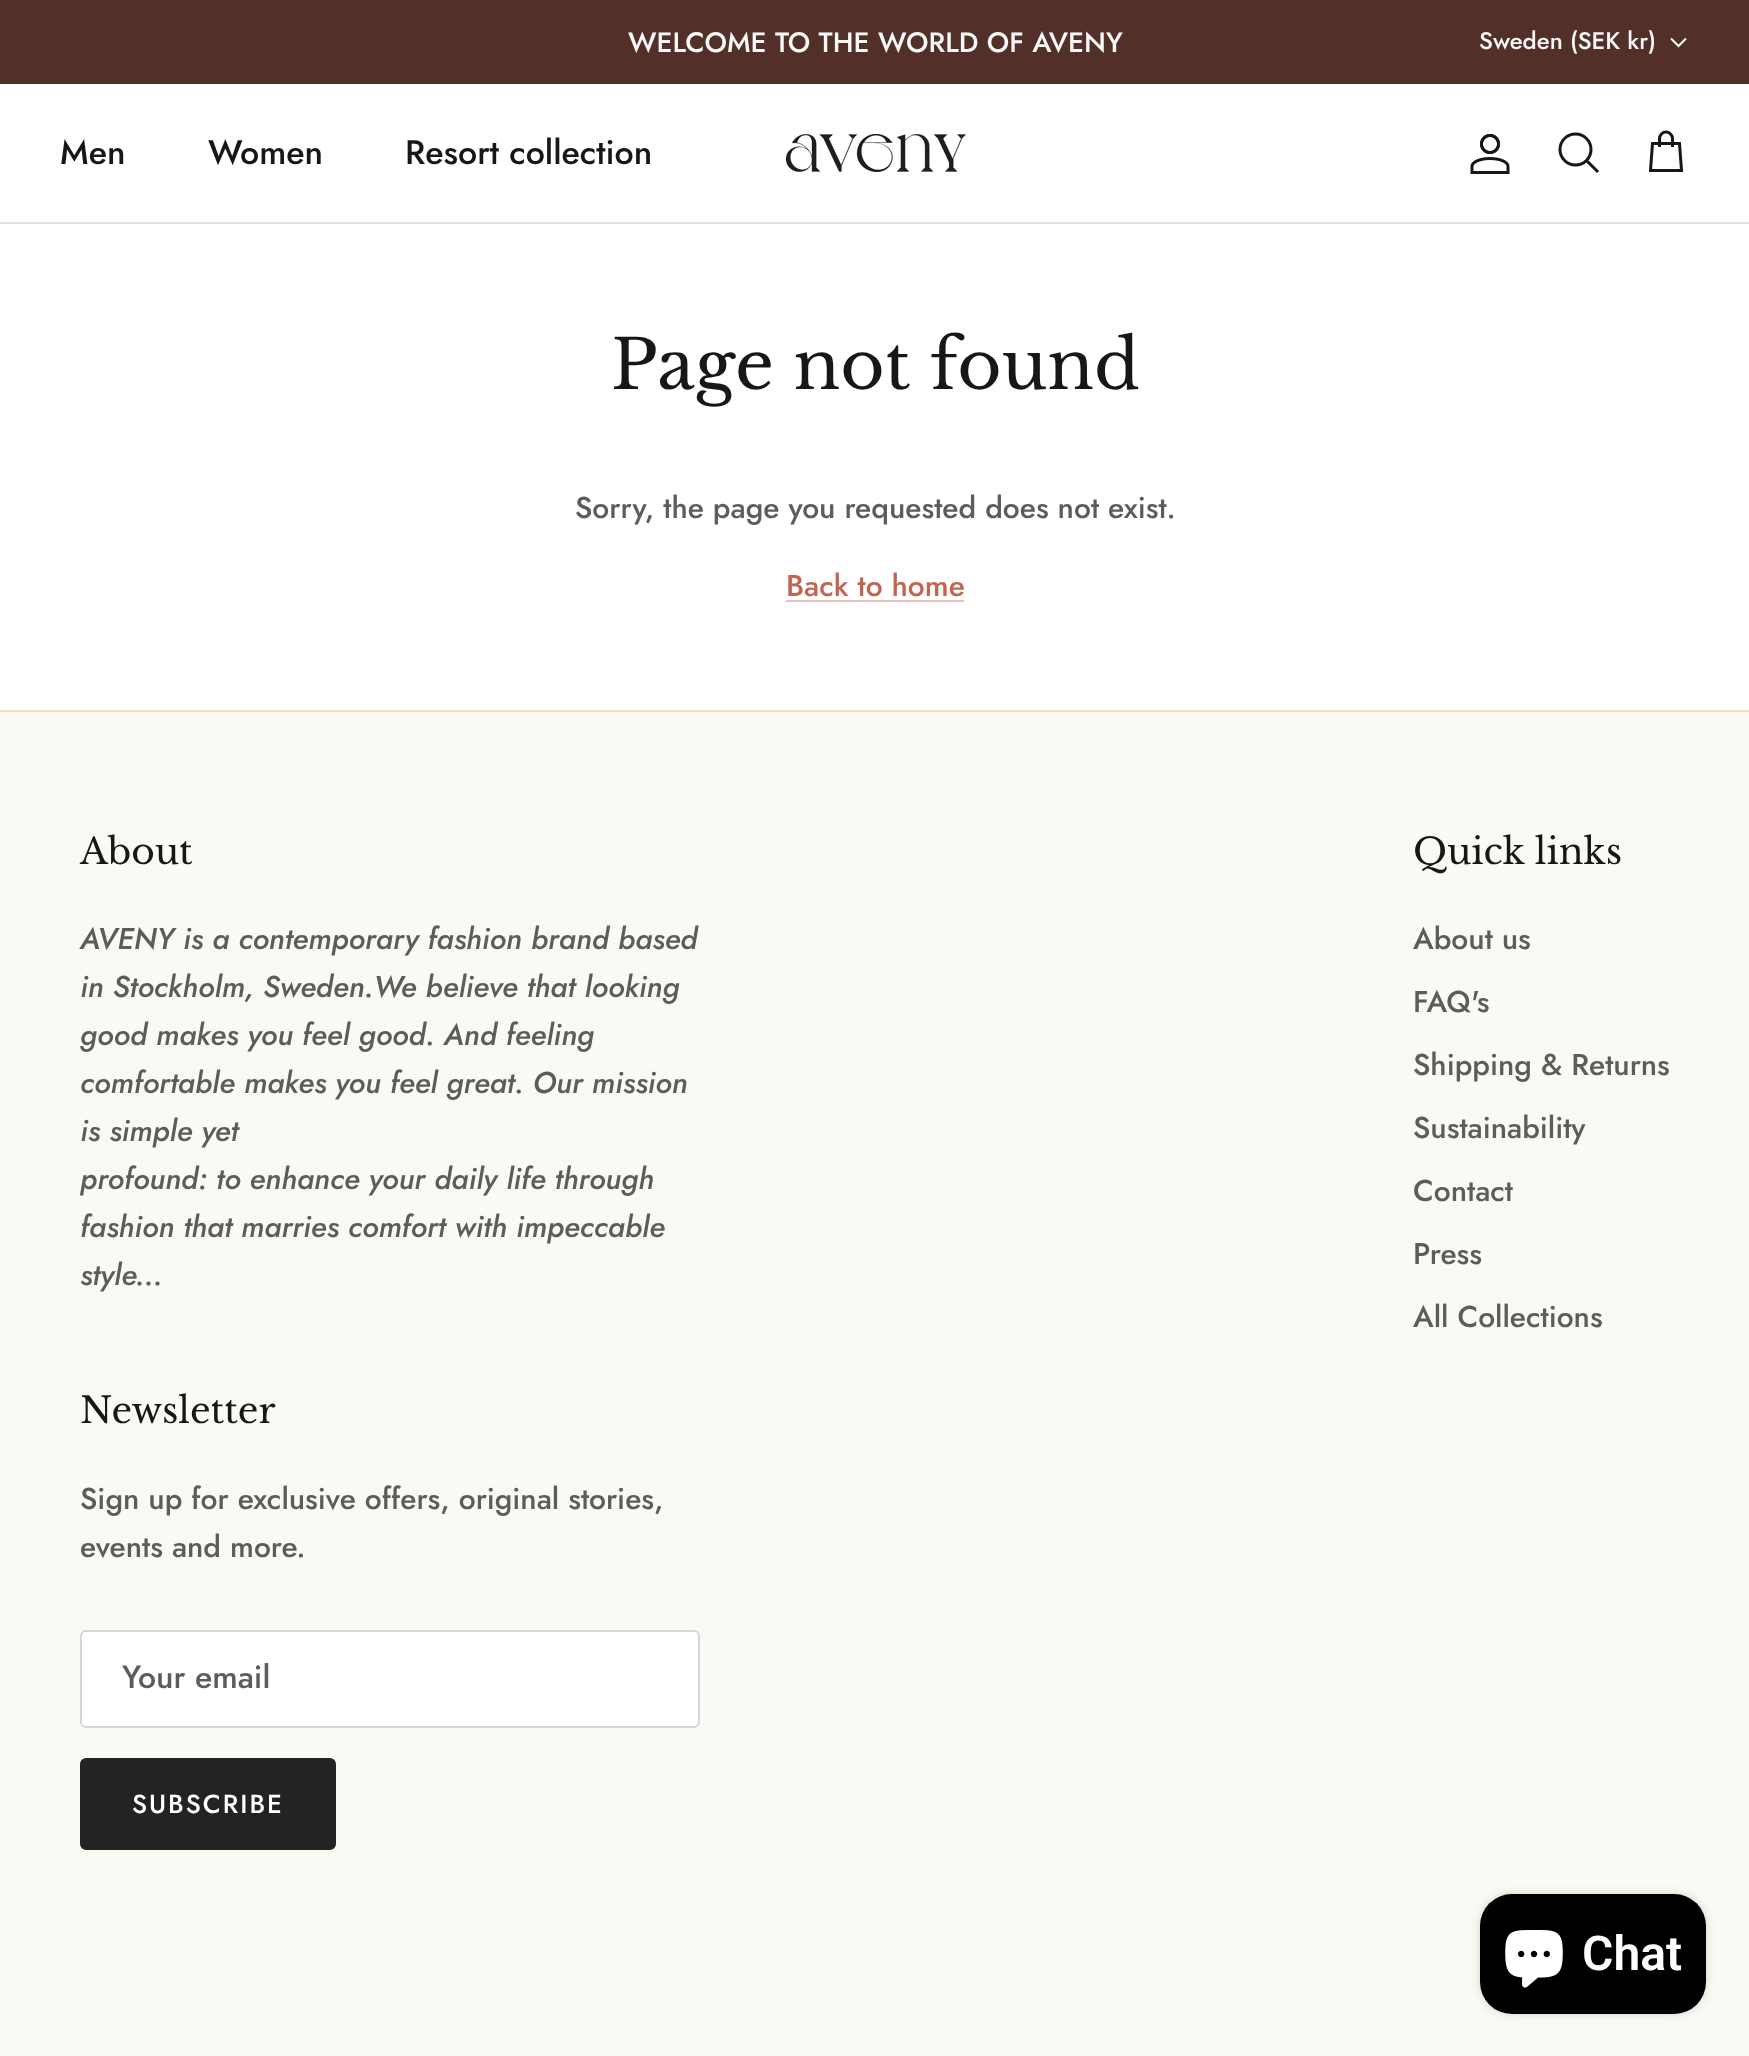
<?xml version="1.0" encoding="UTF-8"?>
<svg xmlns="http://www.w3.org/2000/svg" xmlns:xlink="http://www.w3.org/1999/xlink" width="1749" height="2056">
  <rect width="100%" height="100%" fill="#ffffff" />
  <rect width="1749" height="84" fill="#532f29" />
  <path d="M 1686 38.5 l -7.5 7.5 l -7.5 -7.5" fill="none" stroke="#f8f8f8" stroke-width="2" />
  <rect y="222" width="1749" height="2" fill="#dfe3e8" />
  <image x="786" y="134" width="180" height="38" xlink:href="image1.png" />
  <image x="1470" y="134" width="40" height="40" xlink:href="image2.png" />
  <circle cx="1575.5" cy="149.5" r="15.5" fill="none" stroke="#171717" stroke-width="3" />
  <path d="M 1588 162 l 9 9" fill="none" stroke="#171717" stroke-width="3" stroke-linecap="square" />
  <path d="M 1672.5 147 v -8.5 c 0 -3.5 -3 -6.5 -6.5 -6.5 c -3.5 0 -6.5 3 -6.5 6.5 v 8.5 m -7 -3.5 h 27 l 2 27 h -31 z" fill="none" stroke="#171717" stroke-width="3" />
  <rect x="786" y="600" width="178" height="2" fill="#e6c1ba" />
  <rect y="712" width="1749" height="1344" fill="#faf9f4" />
  <rect y="710" width="1749" height="2" fill="#efdfc7" />
  <rect x="81" y="1631" width="618" height="96" rx="5" fill="#ffffff" stroke="#d6d6d6" stroke-width="2" />
  <rect x="81" y="1759" width="254" height="90" rx="5" fill="#232323" stroke="#232323" stroke-width="2" />
  <rect x="1480" y="1894" width="226" height="120" rx="32" fill="#000000" fill-opacity="0.15" filter="blur(5px)" />
  <rect x="1480" y="1894" width="226" height="120" rx="32" fill="#000000" />
  <image x="1505" y="1930" width="58" height="58" xlink:href="image3.png" />
  <text x="628" y="52" style="font-family: Jost; font-size: 28px; font-weight: 500; fill: #f8f8f8">WELCOME TO THE WORLD OF AVENY</text>
  <text x="1479" y="49" style="font-family: Jost; font-size: 24px; font-weight: 500; fill: #f8f8f8">Sweden (SEK kr)</text>
  <text x="60" y="164" style="font-family: Jost; font-size: 34px; font-weight: 500; fill: #171717">Men</text>
  <text x="208" y="164" style="font-family: Jost; font-size: 34px; font-weight: 500; fill: #171717">Women</text>
  <text x="405" y="164" style="font-family: Jost; font-size: 34px; font-weight: 500; fill: #171717">Resort collection</text>
  <text x="611" y="389" style="font-family: Libre Baskerville; font-size: 68px; fill: #171717">Page not found</text>
  <text x="575" y="518" style="font-family: Jost; font-size: 30px; font-weight: 500; fill: #5c5c5c">Sorry, the page you requested does not exist.</text>
  <text x="786" y="596" style="font-family: Jost; font-size: 30px; font-weight: 500; fill: #c16452">Back to home</text>
  <text x="80" y="864" style="font-family: Libre Baskerville; font-size: 36px; fill: #171717">About</text>
  <text x="80" y="949" style="font-family: Jost; font-size: 30px; font-weight: 500; font-style: italic; fill: #5c5c5c">AVENY is a contemporary fashion brand based</text>
  <text x="80" y="997" style="font-family: Jost; font-size: 30px; font-weight: 500; font-style: italic; fill: #5c5c5c">in Stockholm, Sweden.We believe that looking</text>
  <text x="80" y="1045" style="font-family: Jost; font-size: 30px; font-weight: 500; font-style: italic; fill: #5c5c5c">good makes you feel good. And feeling</text>
  <text x="80" y="1093" style="font-family: Jost; font-size: 30px; font-weight: 500; font-style: italic; fill: #5c5c5c">comfortable makes you feel great. Our mission</text>
  <text x="80" y="1141" style="font-family: Jost; font-size: 30px; font-weight: 500; font-style: italic; fill: #5c5c5c">is simple yet</text>
  <text x="80" y="1189" style="font-family: Jost; font-size: 30px; font-weight: 500; font-style: italic; fill: #5c5c5c">profound: to enhance your daily life through</text>
  <text x="80" y="1237" style="font-family: Jost; font-size: 30px; font-weight: 500; font-style: italic; fill: #5c5c5c">fashion that marries comfort with impeccable</text>
  <text x="80" y="1285" style="font-family: Jost; font-size: 30px; font-weight: 500; font-style: italic; fill: #5c5c5c">style...</text>
  <text x="1413" y="864" style="font-family: Libre Baskerville; font-size: 36px; fill: #171717">Quick links</text>
  <text x="1413" y="949" style="font-family: Jost; font-size: 30px; font-weight: 500; fill: #5c5c5c">About us</text>
  <text x="1413" y="1012" style="font-family: Jost; font-size: 30px; font-weight: 500; fill: #5c5c5c">FAQ's</text>
  <text x="1413" y="1075" style="font-family: Jost; font-size: 30px; font-weight: 500; fill: #5c5c5c">Shipping &amp; Returns</text>
  <text x="1413" y="1138" style="font-family: Jost; font-size: 30px; font-weight: 500; fill: #5c5c5c">Sustainability</text>
  <text x="1413" y="1201" style="font-family: Jost; font-size: 30px; font-weight: 500; fill: #5c5c5c">Contact</text>
  <text x="1413" y="1264" style="font-family: Jost; font-size: 30px; font-weight: 500; fill: #5c5c5c">Press</text>
  <text x="1413" y="1327" style="font-family: Jost; font-size: 30px; font-weight: 500; fill: #5c5c5c">All Collections</text>
  <text x="80" y="1423" style="font-family: Libre Baskerville; font-size: 36px; fill: #171717">Newsletter</text>
  <text x="80" y="1509" style="font-family: Jost; font-size: 30px; font-weight: 500; fill: #5c5c5c">Sign up for exclusive offers, original stories,</text>
  <text x="80" y="1557" style="font-family: Jost; font-size: 30px; font-weight: 500; fill: #5c5c5c">events and more.</text>
  <text x="122" y="1688" style="font-family: Jost; font-size: 32px; font-weight: 500; fill: #5c5c5c">Your email</text>
  <text x="132" y="1813" style="font-family: Jost; font-size: 26px; font-weight: 500; letter-spacing: 2px; fill: #ffffff">SUBSCRIBE</text>
  <text x="1582" y="1970" style="font-family: Roboto; font-size: 48px; font-weight: 600; fill: #ffffff">Chat</text>
</svg>
